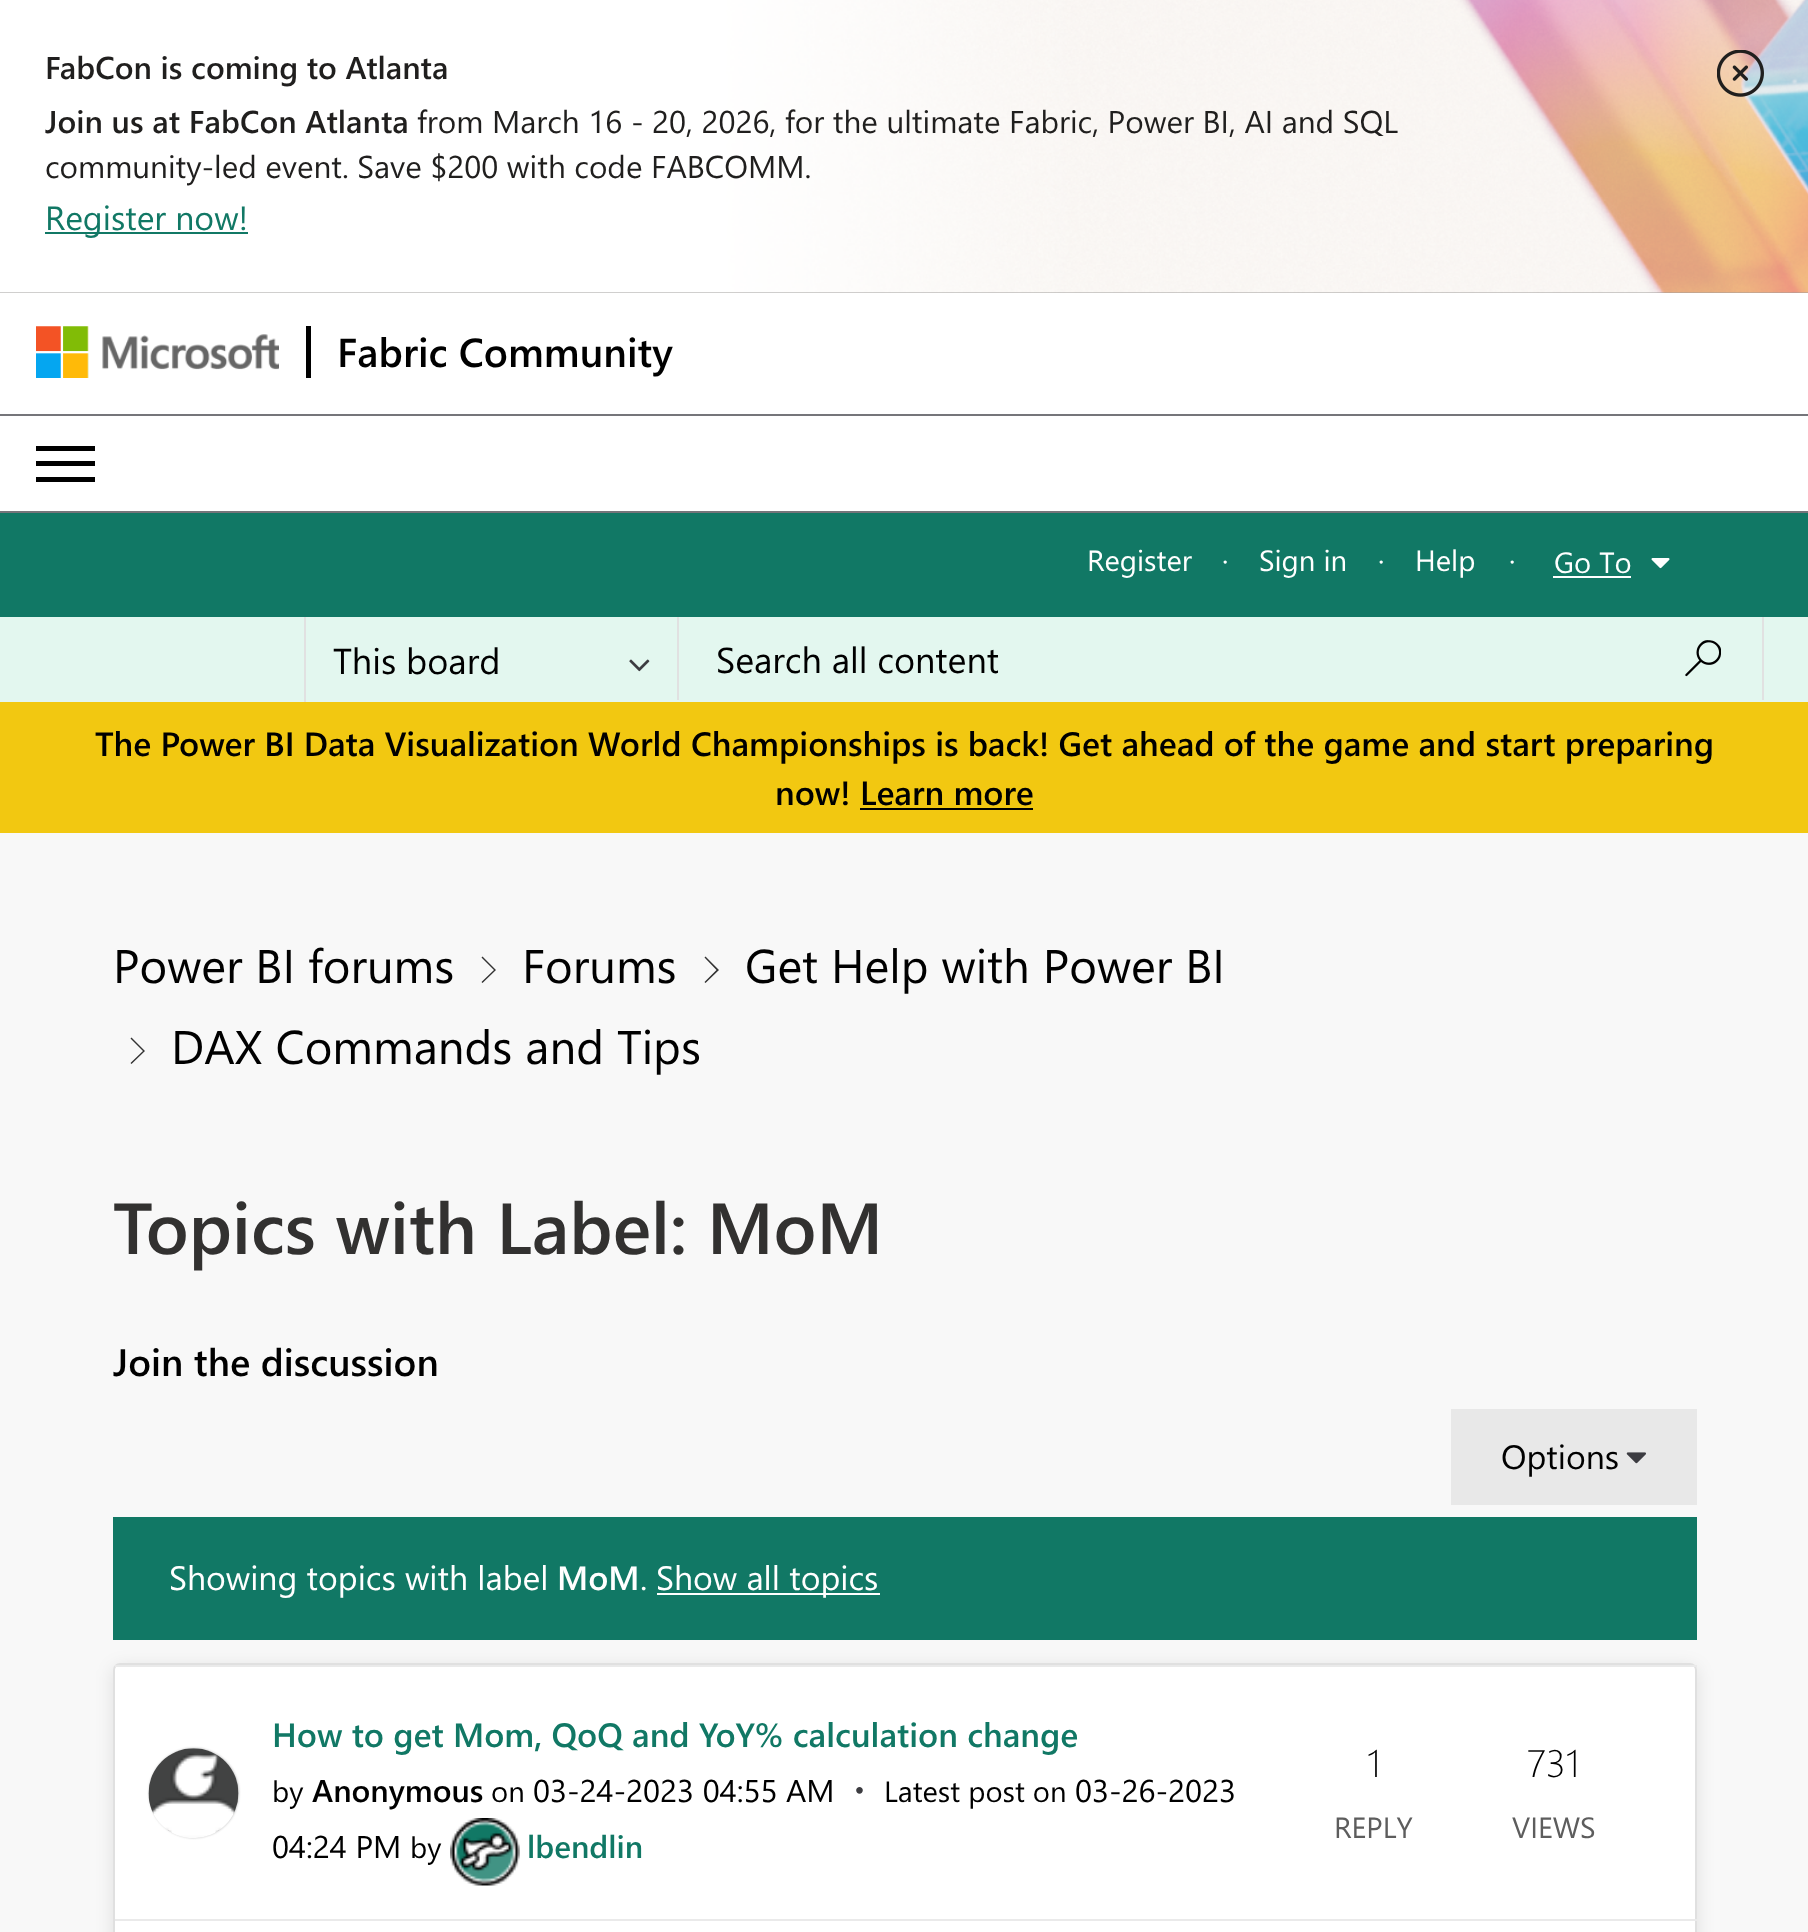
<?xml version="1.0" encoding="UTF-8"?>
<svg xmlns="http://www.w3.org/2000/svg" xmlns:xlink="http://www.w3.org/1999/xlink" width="1808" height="1932">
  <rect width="100%" height="100%" fill="#f8f8f8" />
  <rect y="292" width="1808" height="1" fill="#a19f9d" />
  <image x="0" y="0" width="1808" height="293" xlink:href="image1.png" />
  <rect x="45" y="232" width="203" height="2" fill="#117865" />
  <image x="1717" y="50" width="47" height="47" xlink:href="image2.png" />
  <rect y="293" width="1808" height="218" fill="#ffffff" />
  <image x="36" y="326" width="243" height="52" xlink:href="image3.png" />
  <rect x="306" y="326" width="5" height="52" fill="#000000" />
  <rect y="414" width="1808" height="2" fill="#75757a" />
  <rect y="511" width="1808" height="2" fill="#75757a" />
  <rect x="36" y="446" width="59" height="5" fill="#000000" />
  <rect x="36" y="461" width="59" height="5" fill="#000000" />
  <rect x="36" y="477" width="59" height="5" fill="#000000" />
  <rect y="513" width="1808" height="104" fill="#117865" />
  <rect x="1553" y="576" width="78" height="2" fill="#ffffff" />
  <image x="1651" y="558" width="19" height="11" xlink:href="image4.png" />
  <rect y="617" width="1808" height="85" fill="#e3f7ef" />
  <rect x="304" y="617" width="2" height="85" fill="#e1e1e1" />
  <image x="629" y="659" width="21" height="13" xlink:href="image5.png" />
  <rect x="1762" y="617" width="2" height="83" fill="#e1e1e1" />
  <rect x="677" y="617" width="2" height="83" fill="#e1e1e1" />
  <image x="1685" y="640" width="36" height="37" xlink:href="image6.png" />
  <rect y="702" width="1808" height="131" fill="#f2c811" />
  <rect x="860" y="808" width="173" height="2" fill="#000000" />
  <path d="M 481.5 982 l 12.5 -12 l -12.5 -12.5 l 1 -1 l 13.5 13.5 l -13.5 13 z" fill="#333333" />
  <path d="M 704.5 982 l 12 -12 l -12 -12.5 l 1 -1 l 13.5 13.5 l -13.5 13 z" fill="#333333" />
  <path d="M 130.5 1063 l 12.5 -12 l -12.5 -12.5 l 1 -1 l 13.5 13.5 l -13.5 13 z" fill="#333333" />
  <rect x="1451" y="1409" width="246" height="96" fill="#e8e8e8" />
  <image x="1626" y="1452" width="20" height="12" xlink:href="image7.png" />
  <rect x="113" y="1667" width="1584" height="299" rx="7" fill="#000000" fill-opacity="0.1" filter="blur(9px)" />
  <rect x="113" y="1517" width="1584" height="123" fill="#117865" />
  <rect x="657" y="1593" width="223" height="2" fill="#ffffff" />
  <rect x="114" y="1664" width="1582" height="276" rx="6" fill="#ffffff" stroke="#e0e0e0" stroke-width="2" />
  <rect x="115" y="1919" width="1582" height="2" fill="#eaeaea" />
  <rect x="115" y="1665" width="1582" height="2" fill="#eaeaea" />
  <rect x="149" y="1748" width="90" height="90" rx="45" fill="#c4c4c4" filter="blur(1px)" />
  <image x="148" y="1748" width="91" height="90" xlink:href="image8.png" />
  <image x="450" y="1818" width="70" height="68" xlink:href="image9.png" />
  <text x="45" y="79" style="font-family: Segoe UI; font-size: 31.5px; font-weight: 600; fill: #201f1e">FabCon is coming to Atlanta</text>
  <text x="45" y="133" style="font-family: 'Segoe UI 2'; font-size: 31.5px; font-weight: 600; fill: #201f1e">Join us at FabCon Atlanta</text>
  <text x="417" y="133" style="font-family: Segoe UI; font-size: 31.5px; fill: #201f1e">from March 16 - 20, 2026, for the ultimate Fabric, Power BI, AI and SQL</text>
  <text x="45" y="178" style="font-family: Segoe UI; font-size: 31.5px; fill: #201f1e">community-led event. Save $200 with code FABCOMM.</text>
  <text x="45" y="230" style="font-family: Segoe UI; font-size: 33.75px; fill: #117865">Register now!</text>
  <text x="337" y="367" style="font-family: 'Segoe UI 2'; font-size: 40.5px; font-weight: 600; fill: #000000">Fabric Community</text>
  <text x="1087" y="571" style="font-family: Segoe UI; font-size: 29.25px; fill: #ffffff">Register</text>
  <text x="1222" y="571" style="font-family: Segoe UI; font-size: 29.25px; fill: #ffffff">·</text>
  <text x="1259" y="571" style="font-family: Segoe UI; font-size: 29.25px; fill: #ffffff">Sign in</text>
  <text x="1378" y="571" style="font-family: Segoe UI; font-size: 29.25px; fill: #ffffff">·</text>
  <text x="1415" y="571" style="font-family: Segoe UI; font-size: 29.25px; fill: #ffffff">Help</text>
  <text x="1509" y="571" style="font-family: Segoe UI; font-size: 29.25px; fill: #ffffff">·</text>
  <text x="1554" y="573" style="font-family: Segoe UI; font-size: 29.25px; fill: #ffffff">Go To</text>
  <text x="333" y="674" style="font-family: Segoe UI; font-size: 36px; fill: #000000">This board</text>
  <text x="716" y="673" style="font-family: Segoe UI; font-size: 36px; fill: #000000">Search all content</text>
  <text x="95" y="756" style="font-family: Segoe UI; font-size: 33.75px; font-weight: 600; fill: #000000">The Power BI Data Visualization World Championships is back! Get ahead of the game and start preparing</text>
  <text x="775" y="805" style="font-family: Segoe UI; font-size: 33.75px; font-weight: 600; fill: #000000">now! Learn more</text>
  <text x="113" y="983" style="font-family: Segoe UI; font-size: 47.25px; fill: #000000">Power BI forums</text>
  <text x="522" y="983" style="font-family: Segoe UI; font-size: 47.25px; fill: #000000">Forums</text>
  <text x="745" y="983" style="font-family: Segoe UI; font-size: 47.25px; fill: #000000">Get Help with Power BI</text>
  <text x="171" y="1064" style="font-family: Segoe UI; font-size: 47.25px; fill: #000000">DAX Commands and Tips</text>
  <text x="113" y="1254" style="font-family: Segoe UI; font-size: 72px; font-weight: 600; fill: #323130">Topics with Label: MoM</text>
  <text x="113" y="1376" style="font-family: Segoe UI; font-size: 38.25px; font-weight: 600; fill: #000000">Join the discussion</text>
  <text x="1501" y="1469" style="font-family: Segoe UI; font-size: 33.75px; fill: #000000">Options</text>
  <text x="169" y="1590" style="font-family: Segoe UI; font-size: 33.75px; fill: #ffffff">Showing topics with label</text>
  <text x="557" y="1590" style="font-family: 'Segoe UI 2'; font-size: 33.75px; font-weight: 600; fill: #ffffff">MoM</text>
  <text x="640" y="1590" style="font-family: Segoe UI; font-size: 33.75px; fill: #ffffff">.</text>
  <text x="656" y="1590" style="font-family: Segoe UI; font-size: 33.75px; fill: #ffffff">Show all topics</text>
  <text x="272" y="1747" style="font-family: Segoe UI; font-size: 33.75px; font-weight: 600; fill: #117865">How to get Mom, QoQ and YoY% calculation change</text>
  <text x="272" y="1802" style="font-family: Segoe UI; font-size: 29.25px; fill: #000000">by</text>
  <text x="312" y="1802" style="font-family: Segoe UI; font-size: 31.5px; font-weight: 600; fill: #000000">Anonymous</text>
  <text x="491" y="1802" style="font-family: Segoe UI; font-size: 29.25px; fill: #000000">on</text>
  <text x="533" y="1802" style="font-family: Segoe UI; font-size: 31.5px; fill: #000000">03-24-2023 04:55 AM</text>
  <text x="854" y="1799" style="font-family: Segoe UI; font-size: 27px; fill: #3c3c41">•</text>
  <text x="884" y="1802" style="font-family: Segoe UI; font-size: 29.25px; fill: #000000">Latest post on</text>
  <text x="1075" y="1802" style="font-family: Segoe UI; font-size: 31.5px; fill: #000000">03-26-2023</text>
  <text x="272" y="1858" style="font-family: Segoe UI; font-size: 31.5px; fill: #000000">04:24 PM</text>
  <text x="410" y="1858" style="font-family: Segoe UI; font-size: 29.25px; fill: #000000">by</text>
  <text x="527" y="1858" style="font-family: Segoe UI; font-size: 31.5px; font-weight: 600; fill: #117865">lbendlin</text>
  <text x="1367" y="1777" style="font-family: Segoe UI; font-size: 38.25px; font-weight: 300; fill: #000000">1</text>
  <text x="1334" y="1838" style="font-family: Segoe UI; font-size: 29.25px; fill: #5d5d5d">REPLY</text>
  <text x="1527" y="1777" style="font-family: Segoe UI; font-size: 38.25px; font-weight: 300; fill: #000000">731</text>
  <text x="1512" y="1838" style="font-family: Segoe UI; font-size: 29.25px; fill: #5d5d5d">VIEWS</text>
</svg>
